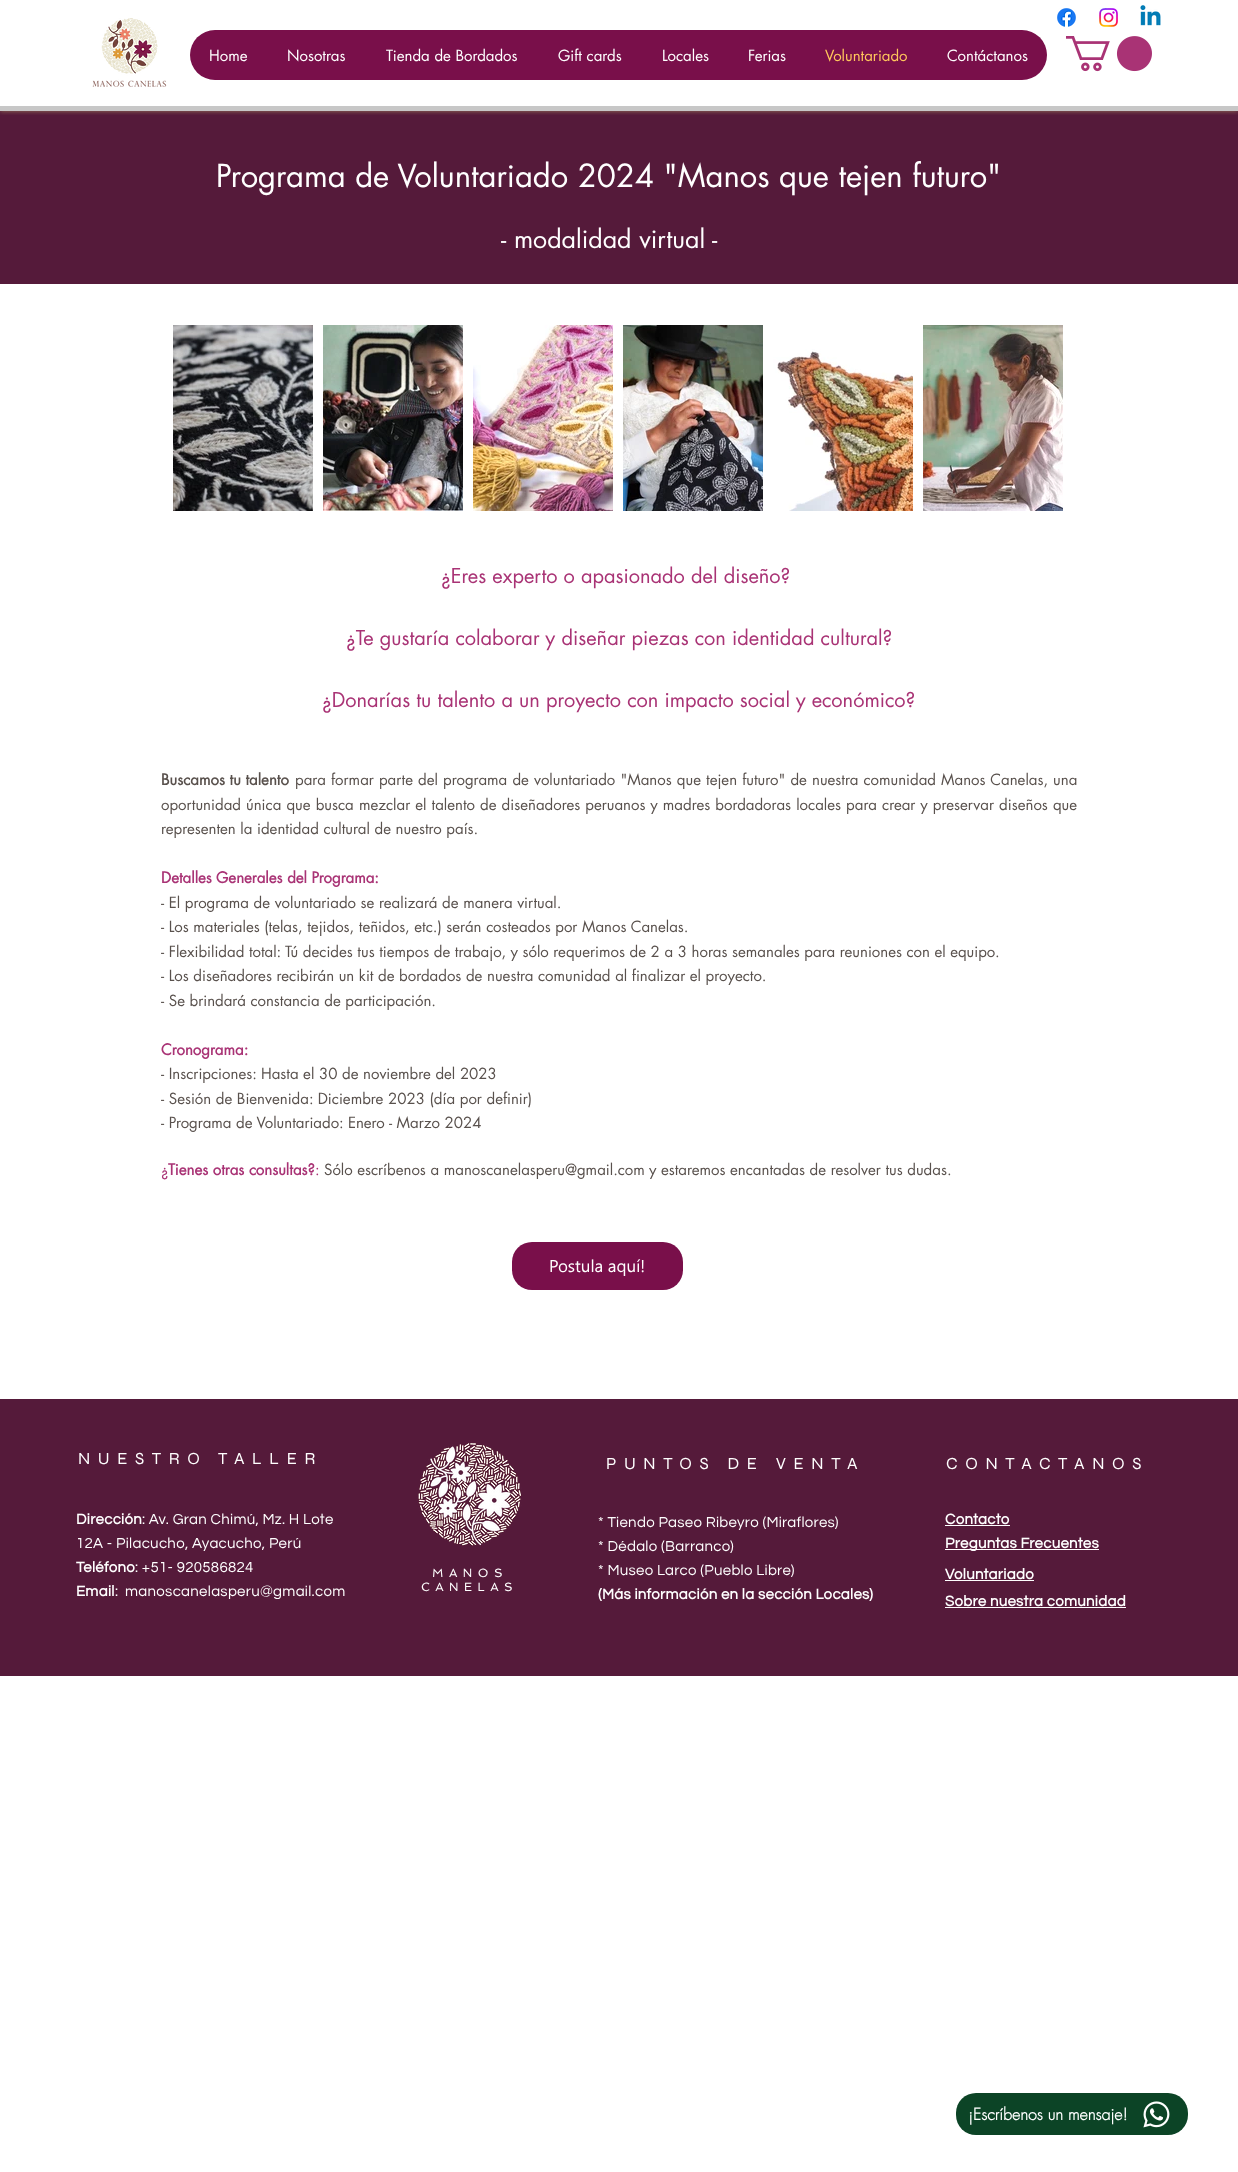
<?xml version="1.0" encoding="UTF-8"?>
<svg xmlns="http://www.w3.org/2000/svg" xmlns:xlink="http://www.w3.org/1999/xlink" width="1238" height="2172">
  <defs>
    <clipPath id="clip1"><rect x="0" y="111" width="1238" height="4" /></clipPath>
  </defs>
  <rect width="100%" height="100%" fill="#ffffff" />
  <rect y="111" width="1238" height="173" fill="#551a3a" />
  <g clip-path="url(#clip1)">
    <rect width="1238" height="111" fill="#e4de7b" fill-opacity="0.48" filter="blur(2.5px)" />
  </g>
  <rect y="106" width="1238" height="5" fill="#c7c7c7" />
  <image x="92" y="18" width="75" height="69" xlink:href="image1.png" />
  <image x="1057" y="8" width="19" height="19" xlink:href="image2.png" />
  <image x="1099" y="8" width="19" height="19" xlink:href="image3.png" />
  <image x="1140" y="5" width="21" height="21" xlink:href="image4.png" />
  <rect x="190" y="30" width="857" height="50" rx="25" fill="#790f4a" />
  <image x="1066" y="36" width="86" height="36" xlink:href="image5.png" />
  <image x="173" y="325" width="140" height="186" xlink:href="image6.png" />
  <image x="323" y="325" width="140" height="186" xlink:href="image7.png" />
  <image x="473" y="325" width="140" height="186" xlink:href="image8.png" />
  <image x="623" y="325" width="140" height="186" xlink:href="image9.png" />
  <image x="773" y="325" width="140" height="186" xlink:href="image10.png" />
  <image x="923" y="325" width="140" height="186" xlink:href="image11.png" />
  <rect x="512" y="1242" width="171" height="48" rx="20" fill="#790f4a" />
  <rect y="1399" width="1238" height="277" fill="#551a3a" />
  <image x="418" y="1443" width="104" height="103" xlink:href="image12.png" />
  <rect x="945" y="1525" width="65" height="1" fill="#ffffff" />
  <rect x="945" y="1549" width="154" height="1" fill="#ffffff" />
  <rect x="945" y="1580" width="89" height="1" fill="#ffffff" />
  <rect x="945" y="1607" width="181" height="1" fill="#ffffff" />
  <rect x="956" y="2093" width="232" height="42" rx="20" fill="#0c4426" />
  <image x="1143" y="2101" width="27" height="27" xlink:href="image13.png" />
  <text x="209" y="61" style="font-family: futura; font-size: 15px; fill: #ffffff">Home</text>
  <text x="287" y="61" style="font-family: futura; font-size: 15px; fill: #ffffff">Nosotras</text>
  <text x="386" y="61" style="font-family: futura; font-size: 15px; fill: #ffffff">Tienda de Bordados</text>
  <text x="558" y="61" style="font-family: futura; font-size: 15px; fill: #ffffff">Gift cards</text>
  <text x="662" y="61" style="font-family: futura; font-size: 15px; fill: #ffffff">Locales</text>
  <text x="748" y="61" style="font-family: futura; font-size: 15px; fill: #ffffff">Ferias</text>
  <text x="825" y="61" style="font-family: futura; font-size: 15px; fill: #ffc65c">Voluntariado</text>
  <text x="947" y="61" style="font-family: futura; font-size: 15px; fill: #ffffff">Contáctanos</text>
  <text x="216" y="187" style="font-family: futura; font-size: 31px; fill: #ffffff">Programa de Voluntariado 2024 "Manos que tejen futuro"</text>
  <text x="501" y="248" style="font-family: futura; font-size: 25px; fill: #ffffff">- modalidad virtual -</text>
  <text x="441" y="583" style="font-family: futura; font-size: 20px; fill: #a93375">¿Eres experto o apasionado del diseño?</text>
  <text x="346" y="645" style="font-family: futura; font-size: 20px; fill: #a93375">¿Te gustaría colaborar y diseñar piezas con identidad cultural?</text>
  <text x="322" y="707" style="font-family: futura; font-size: 20px; fill: #a93375">¿Donarías tu talento a un proyecto con impacto social y económico?</text>
  <text x="161" y="785" style="font-family: futura; font-size: 15px; font-weight: bold; fill: #59514d">Buscamos tu talento</text>
  <text x="295" y="785" word-spacing="0.5" style="font-family: futura; font-size: 15px; fill: #59514d">para formar parte del programa de voluntariado "Manos que tejen futuro" de nuestra comunidad Manos Canelas, una</text>
  <text x="161" y="810" word-spacing="0.5" style="font-family: futura; font-size: 15px; fill: #59514d">oportunidad única que busca mezclar el talento de diseñadores peruanos y madres bordadoras locales para crear y preservar diseños que</text>
  <text x="161" y="834" style="font-family: futura; font-size: 15px; fill: #59514d">representen la identidad cultural de nuestro país.</text>
  <text x="161" y="883" style="font-family: futura; font-size: 15px; font-weight: bold; fill: #a93375">Detalles Generales del Programa:</text>
  <text x="161" y="908" style="font-family: futura; font-size: 15px; fill: #59514d">- El programa de voluntariado se realizará de manera virtual.</text>
  <text x="161" y="932" style="font-family: futura; font-size: 15px; fill: #59514d">- Los materiales (telas, tejidos, teñidos, etc.) serán costeados por Manos Canelas.</text>
  <text x="161" y="957" style="font-family: futura; font-size: 15px; fill: #59514d">- Flexibilidad total: Tú decides tus tiempos de trabajo, y sólo requerimos de 2 a 3 horas semanales para reuniones con el equipo.</text>
  <text x="161" y="981" style="font-family: futura; font-size: 15px; fill: #59514d">- Los diseñadores recibirán un kit de bordados de nuestra comunidad al finalizar el proyecto.</text>
  <text x="161" y="1006" style="font-family: futura; font-size: 15px; fill: #59514d">- Se brindará constancia de participación.</text>
  <text x="161" y="1055" style="font-family: futura; font-size: 15px; font-weight: bold; fill: #a93375">Cronograma:</text>
  <text x="161" y="1079" style="font-family: futura; font-size: 15px; fill: #59514d">- Inscripciones: Hasta el 30 de noviembre del 2023</text>
  <text x="161" y="1104" style="font-family: futura; font-size: 15px; fill: #59514d">- Sesión de Bienvenida: Diciembre 2023 (día por definir)</text>
  <text x="161" y="1128" style="font-family: futura; font-size: 15px; fill: #59514d">- Programa de Voluntariado: Enero - Marzo 2024</text>
  <text x="161" y="1175" style="font-family: futura; font-size: 15px; fill: #a93375">¿</text>
  <text x="168" y="1175" style="font-family: futura; font-size: 15px; font-weight: bold; fill: #a93375">Tienes otras consultas?</text>
  <text x="315" y="1175" style="font-family: futura; font-size: 15px; fill: #a93375">:</text>
  <text x="324" y="1175" style="font-family: futura; font-size: 15px; fill: #59514d">Sólo escríbenos a manoscanelasperu@gmail.com y estaremos encantadas de resolver tus dudas.</text>
  <text x="549" y="1272" style="font-family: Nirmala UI; font-size: 17px; fill: #ffffff">Postula aquí!</text>
  <text x="78" y="1464" style="font-family: Syne; font-size: 17px; letter-spacing: 7.6px; fill: #ffffff">NUESTRO TALLER</text>
  <text x="606" y="1469" style="font-family: Syne; font-size: 17px; letter-spacing: 7.6px; fill: #ffffff">PUNTOS DE VENTA</text>
  <text x="946" y="1469" style="font-family: Syne; font-size: 17px; letter-spacing: 7.6px; fill: #ffffff">CONTACTANOS</text>
  <text x="76" y="1524" style="font-family: Questrial; font-size: 15px; font-weight: bold; letter-spacing: 0.3px; fill: #ffffff">Dirección</text>
  <text x="142" y="1524" style="font-family: Questrial; font-size: 15px; letter-spacing: 0.3px; fill: #ffffff">: Av. Gran Chimú, Mz. H Lote</text>
  <text x="76" y="1548" style="font-family: Questrial; font-size: 15px; letter-spacing: 0.3px; fill: #ffffff">12A - Pilacucho, Ayacucho, Perú</text>
  <text x="76" y="1572" style="font-family: Questrial; font-size: 15px; font-weight: bold; letter-spacing: 0.3px; fill: #ffffff">Teléfono</text>
  <text x="135" y="1572" style="font-family: Questrial; font-size: 15px; letter-spacing: 0.3px; fill: #ffffff">: +51- 920586824</text>
  <text x="76" y="1596" style="font-family: Questrial; font-size: 15px; font-weight: bold; letter-spacing: 0.3px; fill: #ffffff">Email</text>
  <text x="115" y="1596" style="font-family: Questrial; font-size: 15px; letter-spacing: 0.3px; fill: #ffffff">:</text>
  <text x="125" y="1596" style="font-family: Questrial; font-size: 15px; letter-spacing: 0.3px; fill: #ffffff">manoscanelasperu@gmail.com</text>
  <text x="598" y="1527" style="font-family: Questrial; font-size: 15px; letter-spacing: 0.3px; fill: #ffffff">* Tiendo Paseo Ribeyro (Miraflores)</text>
  <text x="598" y="1551" style="font-family: Questrial; font-size: 15px; letter-spacing: 0.3px; fill: #ffffff">* Dédalo (Barranco)</text>
  <text x="598" y="1575" style="font-family: Questrial; font-size: 15px; letter-spacing: 0.3px; fill: #ffffff">* Museo Larco (Pueblo Libre)</text>
  <text x="598" y="1599" style="font-family: Questrial; font-size: 15px; font-weight: bold; letter-spacing: 0.3px; fill: #ffffff">(Más información en la sección Locales)</text>
  <text x="945" y="1524" style="font-family: Questrial; font-size: 15px; font-weight: bold; letter-spacing: 0.3px; fill: #ffffff">Contacto</text>
  <text x="945" y="1548" style="font-family: Questrial; font-size: 15px; font-weight: bold; letter-spacing: 0.3px; fill: #ffffff">Preguntas Frecuentes</text>
  <text x="432" y="1577" style="font-family: Spinnaker; font-size: 12px; letter-spacing: 5.5px; fill: #ffffff">MANOS</text>
  <text x="421" y="1591" style="font-family: Spinnaker; font-size: 12px; letter-spacing: 5.5px; fill: #ffffff">CANELAS</text>
  <text x="945" y="1579" style="font-family: Questrial; font-size: 15px; font-weight: bold; letter-spacing: 0.3px; fill: #ffffff">Voluntariado</text>
  <text x="945" y="1606" style="font-family: Questrial; font-size: 15px; font-weight: bold; letter-spacing: 0.3px; fill: #ffffff">Sobre nuestra comunidad</text>
  <text x="968" y="2120" style="font-family: 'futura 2'; font-size: 16px; font-weight: bold; fill: #ffffff">¡Escríbenos un mensaje!</text>
</svg>
